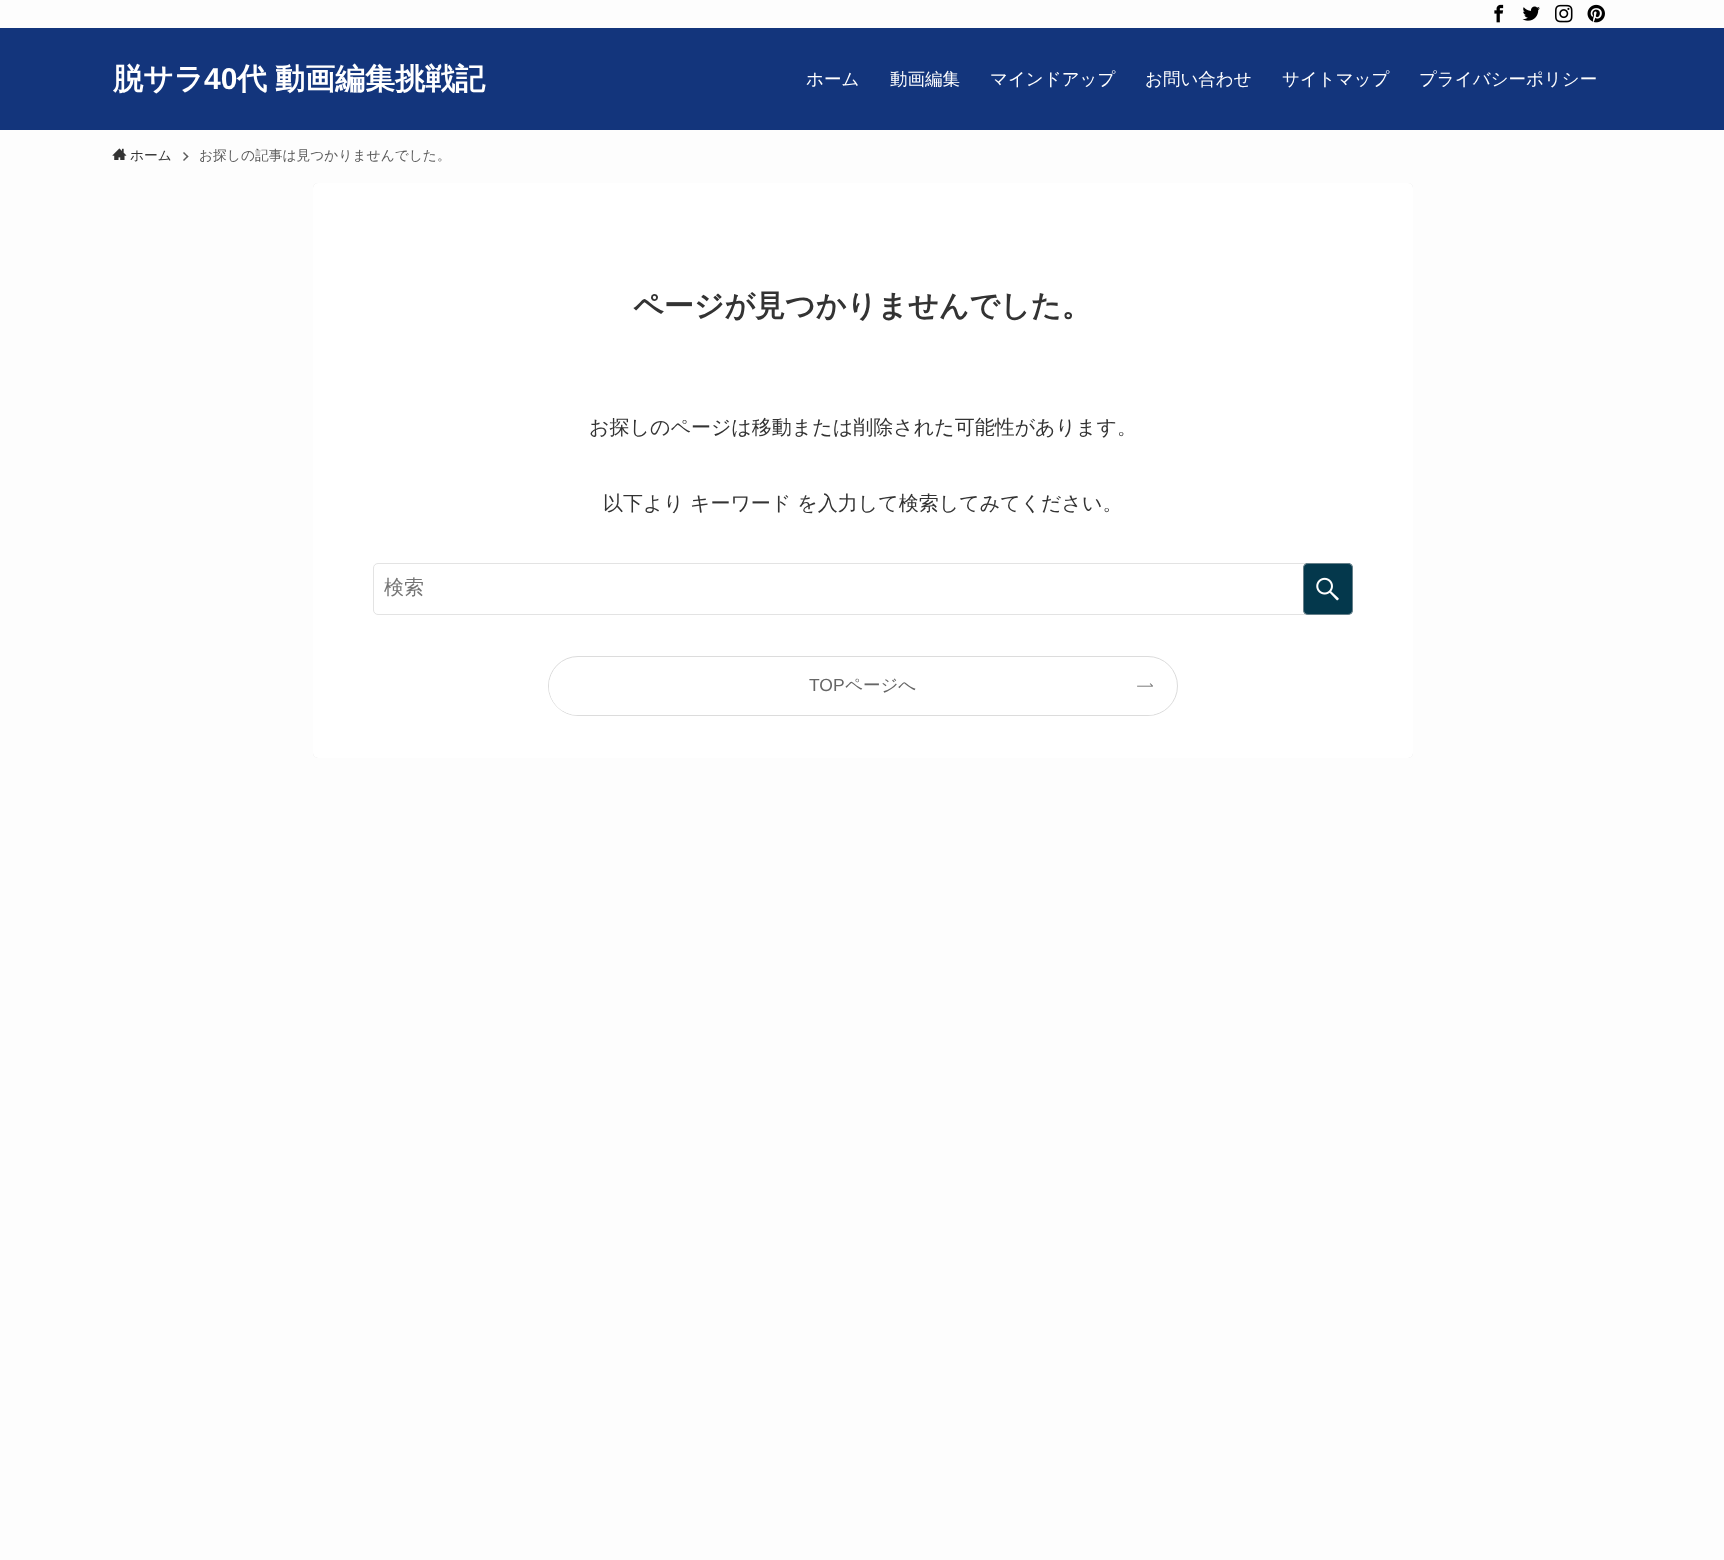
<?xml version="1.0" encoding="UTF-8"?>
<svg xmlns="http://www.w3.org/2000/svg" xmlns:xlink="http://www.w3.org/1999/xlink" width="1724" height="1560">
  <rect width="100%" height="100%" fill="#fdfdfd" />
  <rect y="28" width="1724" height="102" fill="#13357c" />
  <image x="1494" y="4" width="10" height="19" xlink:href="image1.png" />
  <image x="1522" y="6" width="18" height="15" xlink:href="image2.png" />
  <image x="1555" y="4" width="18" height="19" xlink:href="image3.png" />
  <image x="1587" y="4" width="18" height="19" xlink:href="image4.png" />
  <image x="112" y="148" width="15" height="12" xlink:href="image5.png" />
  <path d="M 184 152 l 4.5 4.5 l -1 1 l -4.5 -4.5 z" fill="#5b5b5b" />
  <path d="M 187.5 155.5 l 1 1 l -4.5 4.5 l -1 -1 z" fill="#5b5b5b" />
  <rect x="313" y="183" width="1100" height="575" rx="5" fill="#000000" fill-opacity="0.12" filter="blur(0.5px)" />
  <rect x="313" y="183" width="1100" height="575" rx="5" fill="#ffffff" />
  <rect x="373.5" y="563.5" width="979" height="51" rx="4.5" fill="none" stroke="#e3e3e3" />
  <rect x="1303" y="563" width="50" height="52" rx="5" fill="#04384c" />
  <rect x="1303.5" y="563.5" width="49" height="51" rx="4.5" fill="none" stroke="#c7c7c7" stroke-opacity="0.5" />
  <image x="1316" y="577" width="23" height="24" xlink:href="image6.png" />
  <rect x="548.5" y="656.5" width="629" height="59" rx="29.5" fill="none" stroke="#dcdcdc" />
  <rect x="549" y="658" width="627" height="57" rx="28.5" fill="#ffffff" />
  <image x="1137" y="683" width="16" height="4" xlink:href="image7.png" />
  <text x="113" y="89" style="font-family: WenQuanYi Zen Hei; font-size: 30px; font-weight: bold; fill: #ffffff">脱サラ</text>
  <text x="204" y="89" style="font-family: Liberation Sans; font-size: 30px; font-weight: bold; fill: #ffffff">40</text>
  <text x="237" y="89" word-spacing="-1" style="font-family: WenQuanYi Zen Hei; font-size: 30px; font-weight: bold; fill: #ffffff">代 動画編集挑戦記</text>
  <text x="806" y="85" style="font-family: WenQuanYi Zen Hei; font-size: 17.5px; font-weight: 500; fill: #ffffff">ホーム</text>
  <text x="890" y="85" style="font-family: WenQuanYi Zen Hei; font-size: 17.5px; font-weight: 500; fill: #ffffff">動画編集</text>
  <text x="990" y="85" style="font-family: WenQuanYi Zen Hei; font-size: 17.5px; font-weight: 500; fill: #ffffff">マインドアップ</text>
  <text x="1145" y="85" style="font-family: WenQuanYi Zen Hei; font-size: 17.5px; font-weight: 500; fill: #ffffff">お問い合わせ</text>
  <text x="1282" y="85" style="font-family: WenQuanYi Zen Hei; font-size: 17.5px; font-weight: 500; fill: #ffffff">サイトマップ</text>
  <text x="1419" y="85" style="font-family: WenQuanYi Zen Hei; font-size: 17.5px; font-weight: 500; fill: #ffffff">プライバシーポリシー</text>
  <text x="130" y="160" style="font-family: WenQuanYi Zen Hei; font-size: 13.75px; font-weight: 500; fill: #333333">ホーム</text>
  <text x="199" y="160" style="font-family: WenQuanYi Zen Hei; font-size: 13.75px; font-weight: 500; fill: #5b5b5b">お探しの記事は見つかりませんでした。</text>
  <text x="633" y="316" style="font-family: WenQuanYi Zen Hei; font-size: 30px; font-weight: bold; fill: #333333">ページが見つかりませんでした。</text>
  <text x="589" y="434" style="font-family: WenQuanYi Zen Hei; font-size: 20px; font-weight: 500; fill: #333333">お探しのページは移動または削除された可能性があります。</text>
  <text x="603" y="510" style="font-family: WenQuanYi Zen Hei; font-size: 20px; font-weight: 500; fill: #333333">以下より キーワード を入力して検索してみてください。</text>
  <text x="384" y="594" style="font-family: WenQuanYi Zen Hei; font-size: 20px; font-weight: 500; fill: #757575">検索</text>
  <text x="809" y="691" style="font-family: Liberation Sans; font-size: 17.5px; fill: #666666">TOP</text>
  <text x="845" y="691" style="font-family: WenQuanYi Zen Hei; font-size: 17.5px; font-weight: 500; fill: #666666">ページへ</text>
</svg>
